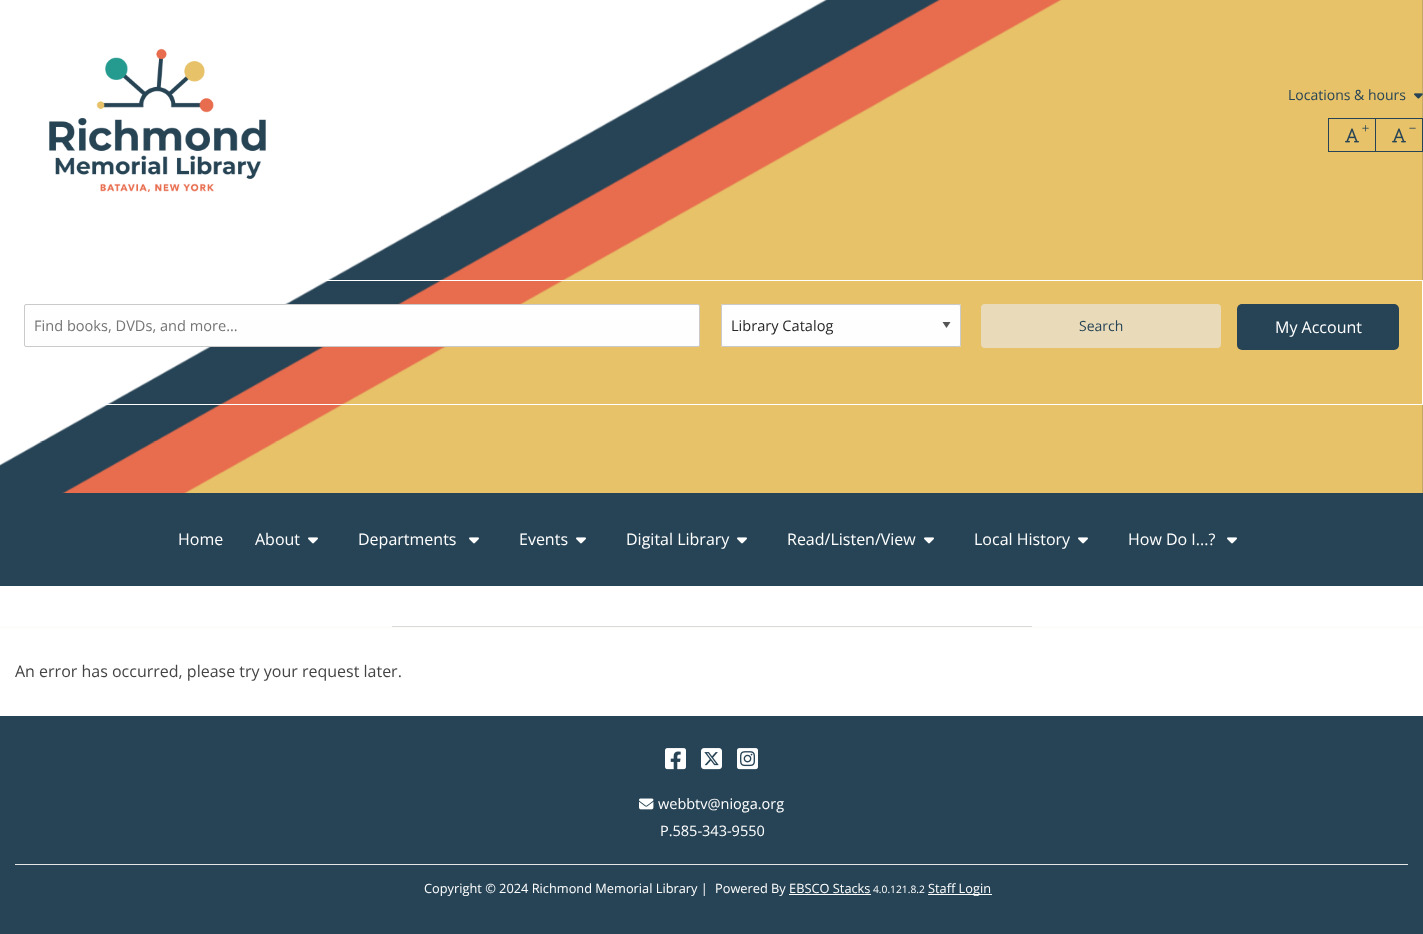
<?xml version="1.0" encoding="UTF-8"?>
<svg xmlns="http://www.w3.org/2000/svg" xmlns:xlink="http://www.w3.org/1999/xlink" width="1423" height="934">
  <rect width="100%" height="100%" fill="#274456" />
  <rect y="627" width="1423" height="89" fill="#ffffff" />
  <image x="0" y="0" width="1423" height="628" xlink:href="image1.png" />
  <image x="49" y="48" width="217" height="145" xlink:href="image2.png" />
  <image x="1414" y="93" width="9" height="6" xlink:href="image3.png" />
  <rect x="1328.5" y="118.5" width="47" height="33" fill="none" stroke="#274456" />
  <image x="1345" y="128" width="14" height="15" xlink:href="image4.png" />
  <image x="1362" y="125" width="7" height="7" xlink:href="image5.png" />
  <rect x="1376" y="118" width="47" height="1" fill="#274456" />
  <rect x="1422" y="118" width="1" height="34" fill="#274456" />
  <rect x="1376" y="151" width="47" height="1" fill="#274456" />
  <image x="1392" y="128" width="14" height="15" xlink:href="image4.png" />
  <image x="1409" y="127" width="7" height="2" xlink:href="image6.png" />
  <rect x="0.5" y="280.5" width="1422" height="124" fill="none" stroke="#ffffff" />
  <rect x="24.5" y="304.5" width="675" height="42" rx="1.5" fill="#fefefe" stroke="#cacaca" />
  <rect x="721" y="304" width="240" height="43" rx="2" fill="#fefefe" />
  <path d="M 942.5 322 h 8 l -4 6 z" fill="#545454" />
  <rect x="721.5" y="304.5" width="239" height="42" rx="1.5" fill="none" stroke="#cacaca" />
  <rect x="981" y="304" width="240" height="44" rx="4" fill="#e9dbba" />
  <rect x="1237" y="304" width="162" height="46" rx="5" fill="#274456" />
  <rect y="493" width="1423" height="93" fill="#274456" />
  <image x="308" y="537" width="10" height="7" xlink:href="image7.png" />
  <image x="469" y="537" width="10" height="7" xlink:href="image7.png" />
  <image x="576" y="537" width="10" height="7" xlink:href="image7.png" />
  <image x="737" y="537" width="10" height="7" xlink:href="image7.png" />
  <image x="924" y="537" width="10" height="7" xlink:href="image7.png" />
  <image x="1078" y="537" width="10" height="7" xlink:href="image7.png" />
  <image x="1227" y="537" width="10" height="7" xlink:href="image7.png" />
  <rect y="586" width="1423" height="41" fill="#ffffff" />
  <rect x="392" y="626" width="640" height="1" fill="#dadada" />
  <image x="665" y="748" width="21" height="22" xlink:href="image8.png" />
  <image x="701" y="748" width="21" height="22" xlink:href="image9.png" />
  <image x="737" y="748" width="21" height="22" xlink:href="image10.png" />
  <image x="639" y="798" width="15" height="12" xlink:href="image11.png" />
  <rect x="15" y="864" width="1393" height="1" fill="#e6e6e6" />
  <rect x="789" y="894" width="82" height="1" fill="#ffffff" />
  <rect x="928" y="894" width="64" height="1" fill="#ffffff" />
  <text x="1288" y="100" style="font-family: Open Sans; font-size: 14px; fill: #274456">Locations &amp; hours</text>
  <text x="34" y="331" style="font-family: Open Sans; font-size: 14.6px; fill: #757575">Find books, DVDs, and more...</text>
  <text x="731" y="331" style="font-family: Open Sans; font-size: 14.6px; fill: #282828">Library Catalog</text>
  <text x="1079" y="331" style="font-family: Open Sans; font-size: 14px; fill: #274456">Search</text>
  <text x="1275" y="333" style="font-family: Open Sans; font-size: 16px; fill: #ffffff">My Account</text>
  <text x="178" y="545" style="font-family: Open Sans; font-size: 16px; fill: #ffffff">Home</text>
  <text x="255" y="545" style="font-family: Open Sans; font-size: 16px; fill: #ffffff">About</text>
  <text x="358" y="545" style="font-family: Open Sans; font-size: 16px; fill: #ffffff">Departments</text>
  <text x="519" y="545" style="font-family: Open Sans; font-size: 16px; fill: #ffffff">Events</text>
  <text x="626" y="545" style="font-family: Open Sans; font-size: 16px; fill: #ffffff">Digital Library</text>
  <text x="787" y="545" style="font-family: Open Sans; font-size: 16px; fill: #ffffff">Read/Listen/View</text>
  <text x="974" y="545" style="font-family: Open Sans; font-size: 16px; fill: #ffffff">Local History</text>
  <text x="1128" y="545" style="font-family: Open Sans; font-size: 16px; fill: #ffffff">How Do I...?</text>
  <text x="15" y="677" style="font-family: Open Sans; font-size: 16px; fill: #444444">An error has occurred, please try your request later.</text>
  <text x="658" y="809" style="font-family: Open Sans; font-size: 14.5px; fill: #ffffff">webbtv@nioga.org</text>
  <text x="660" y="836" style="font-family: Open Sans; font-size: 14.5px; fill: #ffffff">P.585-343-9550</text>
  <text x="424" y="893" style="font-family: Open Sans; font-size: 12.8px; fill: #ffffff">Copyright © 2024 Richmond Memorial Library |</text>
  <text x="715" y="893" style="font-family: Open Sans; font-size: 12.8px; fill: #ffffff">Powered By EBSCO Stacks</text>
  <text x="873" y="893" style="font-family: Open Sans; font-size: 10.25px; fill: #ffffff">4.0.121.8.2</text>
  <text x="928" y="893" style="font-family: Open Sans; font-size: 12.8px; fill: #ffffff">Staff Login</text>
</svg>
